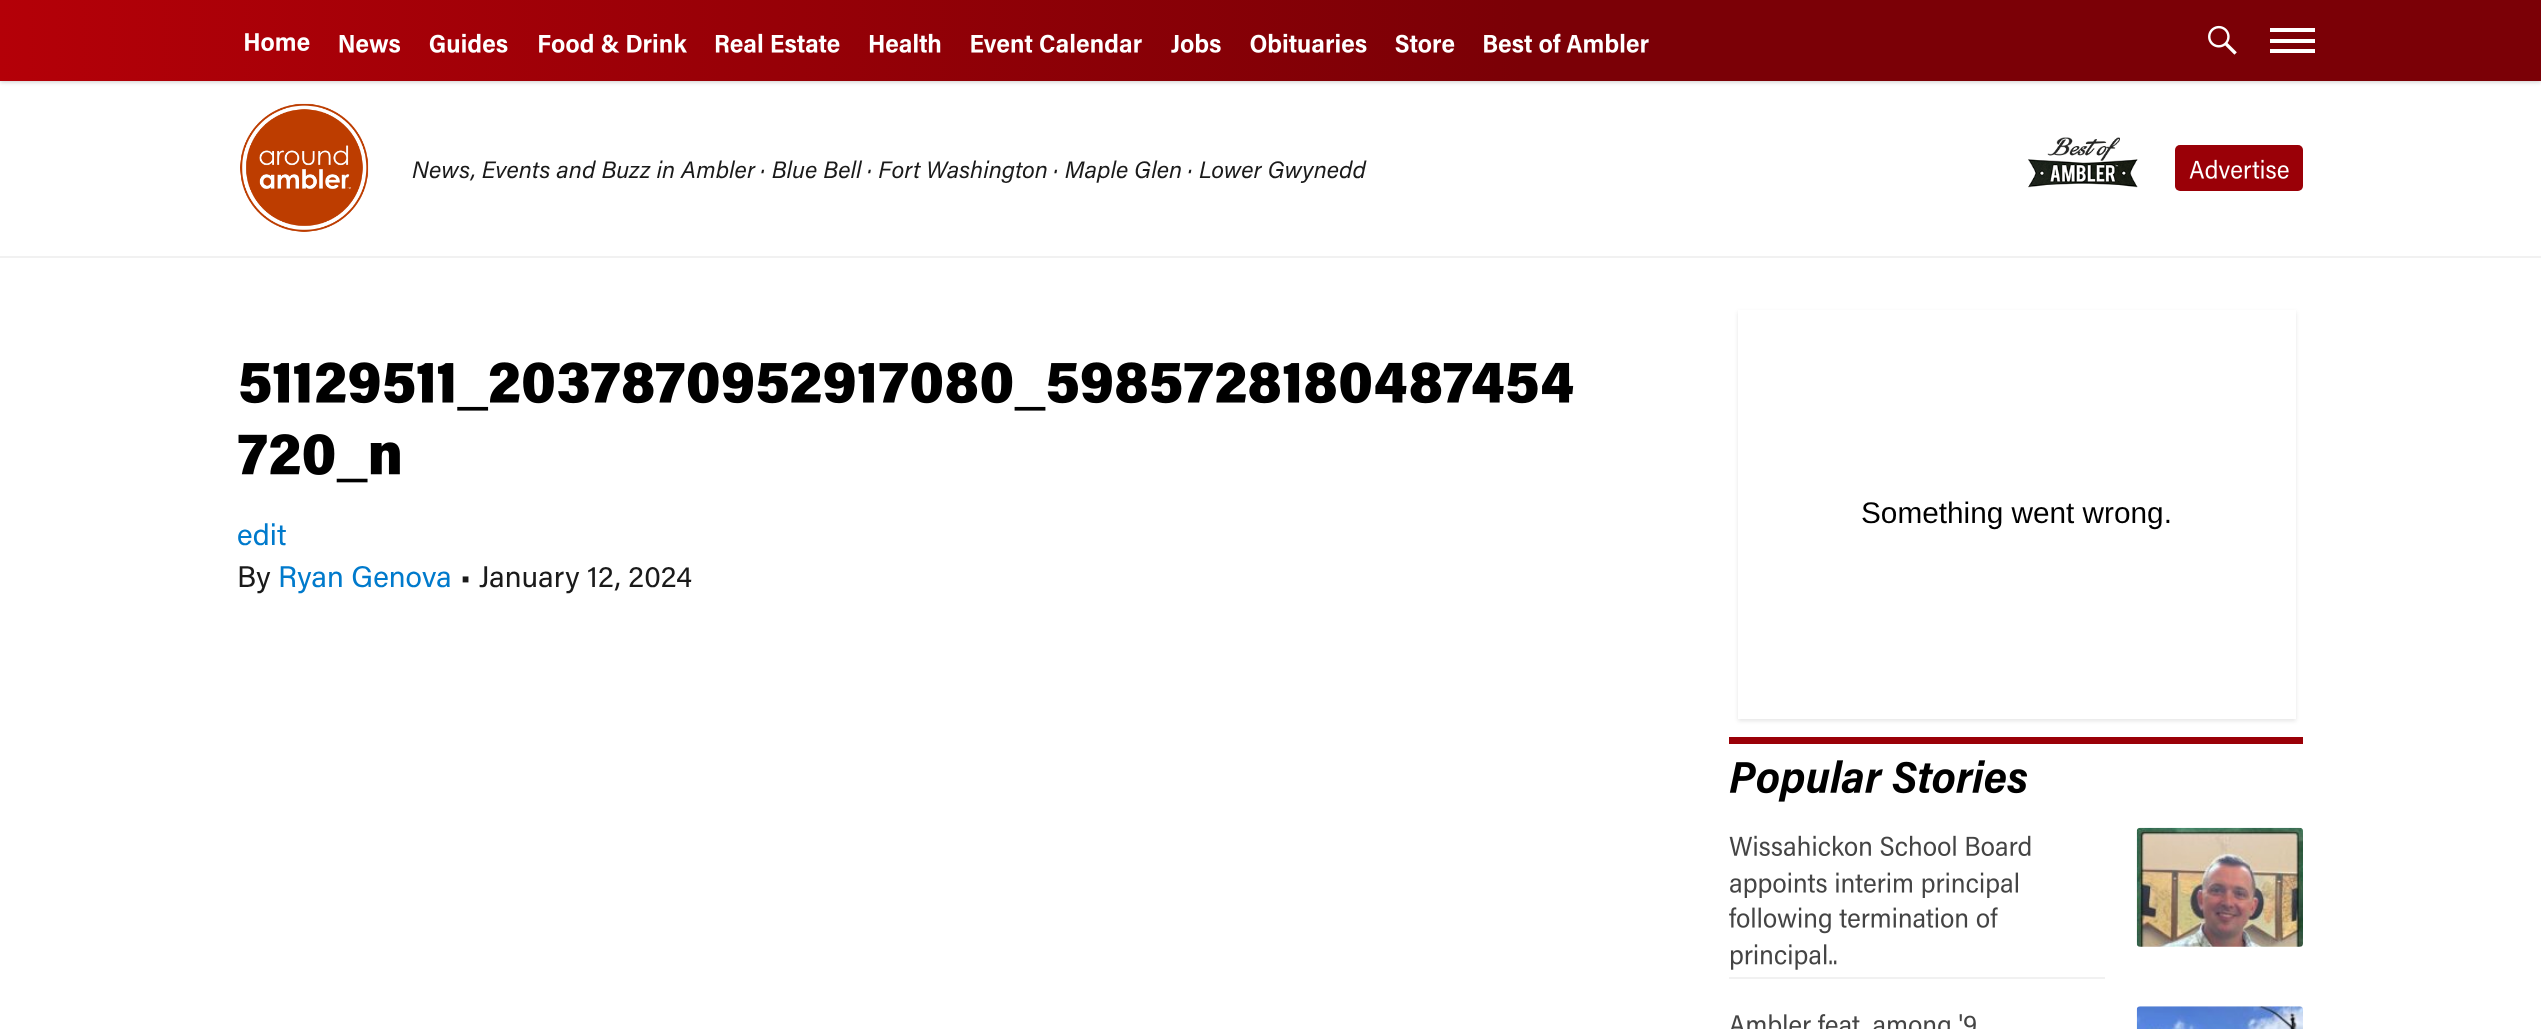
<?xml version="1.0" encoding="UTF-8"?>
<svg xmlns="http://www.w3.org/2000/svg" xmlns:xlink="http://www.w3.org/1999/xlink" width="2541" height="1029">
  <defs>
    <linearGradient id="g1" gradientUnits="userSpaceOnUse" x1="0" y1="40" x2="2541" y2="40"><stop offset="0" stop-color="#b40008" /><stop offset="0.6" stop-color="#7b0006" /></linearGradient>
    <clipPath id="clip1"><path d="M 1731 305 h 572 v 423 h -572 z m 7 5 h 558 v 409 h -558 z" clip-rule="evenodd" /></clipPath>
  </defs>
  <rect width="100%" height="100%" fill="#ffffff" />
  <rect y="2" width="2541" height="80" fill="#000000" fill-opacity="0.2" filter="blur(2px)" />
  <rect width="2541" height="81" fill="url(#g1)" />
  <image x="245" y="33" width="65" height="18" xlink:href="image1.png" />
  <image x="339" y="35" width="61" height="18" xlink:href="image2.png" />
  <image x="429" y="33" width="79" height="20" xlink:href="image3.png" />
  <image x="539" y="33" width="148" height="20" xlink:href="image4.png" />
  <image x="715" y="33" width="125" height="20" xlink:href="image5.png" />
  <image x="869" y="33" width="72" height="20" xlink:href="image6.png" />
  <image x="971" y="33" width="171" height="20" xlink:href="image7.png" />
  <image x="1171" y="33" width="50" height="20" xlink:href="image8.png" />
  <image x="1250" y="33" width="117" height="20" xlink:href="image9.png" />
  <image x="1395" y="34" width="60" height="19" xlink:href="image10.png" />
  <image x="1484" y="33" width="165" height="20" xlink:href="image11.png" />
  <image x="2208" y="25" width="29" height="30" xlink:href="image12.png" />
  <rect x="2270" y="28" width="45" height="4" fill="#ffffff" />
  <rect x="2270" y="39" width="45" height="4" fill="#ffffff" />
  <rect x="2270" y="49" width="45" height="4" fill="#ffffff" />
  <rect y="256" width="2541" height="2" fill="#f1f1f1" />
  <image x="240" y="103" width="129" height="129" xlink:href="image13.png" />
  <image x="2028" y="137" width="110" height="51" xlink:href="image14.png" />
  <rect x="2175" y="145" width="128" height="46" rx="5" fill="#9a0007" />
  <image x="2189" y="159" width="100" height="20" xlink:href="image15.png" />
  <g clip-path="url(#clip1)">
    <rect x="1738" y="312" width="558" height="409" fill="#000000" fill-opacity="0.1" filter="blur(2px)" />
  </g>
  <rect x="1729" y="737" width="574" height="7" fill="#9a0007" />
  <image x="1729" y="760" width="298" height="42" xlink:href="image16.png" />
  <rect x="1729" y="977" width="376" height="2" fill="#f1f1f1" />
  <image x="1729" y="835" width="302" height="21" xlink:href="image17.png" />
  <image x="1730" y="872" width="288" height="26" xlink:href="image18.png" />
  <image x="1729" y="907" width="269" height="27" xlink:href="image19.png" />
  <image x="1730" y="944" width="107" height="26" xlink:href="image20.png" />
  <image x="2136" y="827" width="167" height="120" xlink:href="image21.png" />
  <image x="1731" y="1014" width="245" height="15" xlink:href="image22.png" />
  <image x="2136" y="1006" width="167" height="23" xlink:href="image23.png" />
  <image x="240" y="362" width="1334" height="49" xlink:href="image24.png" />
  <image x="238" y="434" width="162" height="49" xlink:href="image25.png" />
  <text x="412" y="178" style="font-family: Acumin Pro; font-size: 23.8px; font-style: italic; fill: #1a1a1a">News, Events and Buzz in Ambler · Blue Bell · Fort Washington · Maple Glen · Lower Gwynedd</text>
  <text x="1861" y="523" style="font-family: Liberation Sans; font-size: 29.75px; fill: #000000">Something went wrong.</text>
  <text x="237" y="545" style="font-family: Acumin Pro; font-size: 29.75px; fill: #007acc">edit</text>
  <text x="237" y="587" style="font-family: Acumin Pro; font-size: 29.75px; fill: #1a1a1a">By</text>
  <text x="278" y="587" style="font-family: Acumin Pro; font-size: 29.75px; fill: #007acc">Ryan Genova</text>
  <text x="460" y="587" style="font-family: Acumin Pro; font-size: 29.75px; fill: #1a1a1a">• January 12, 2024</text>
</svg>
